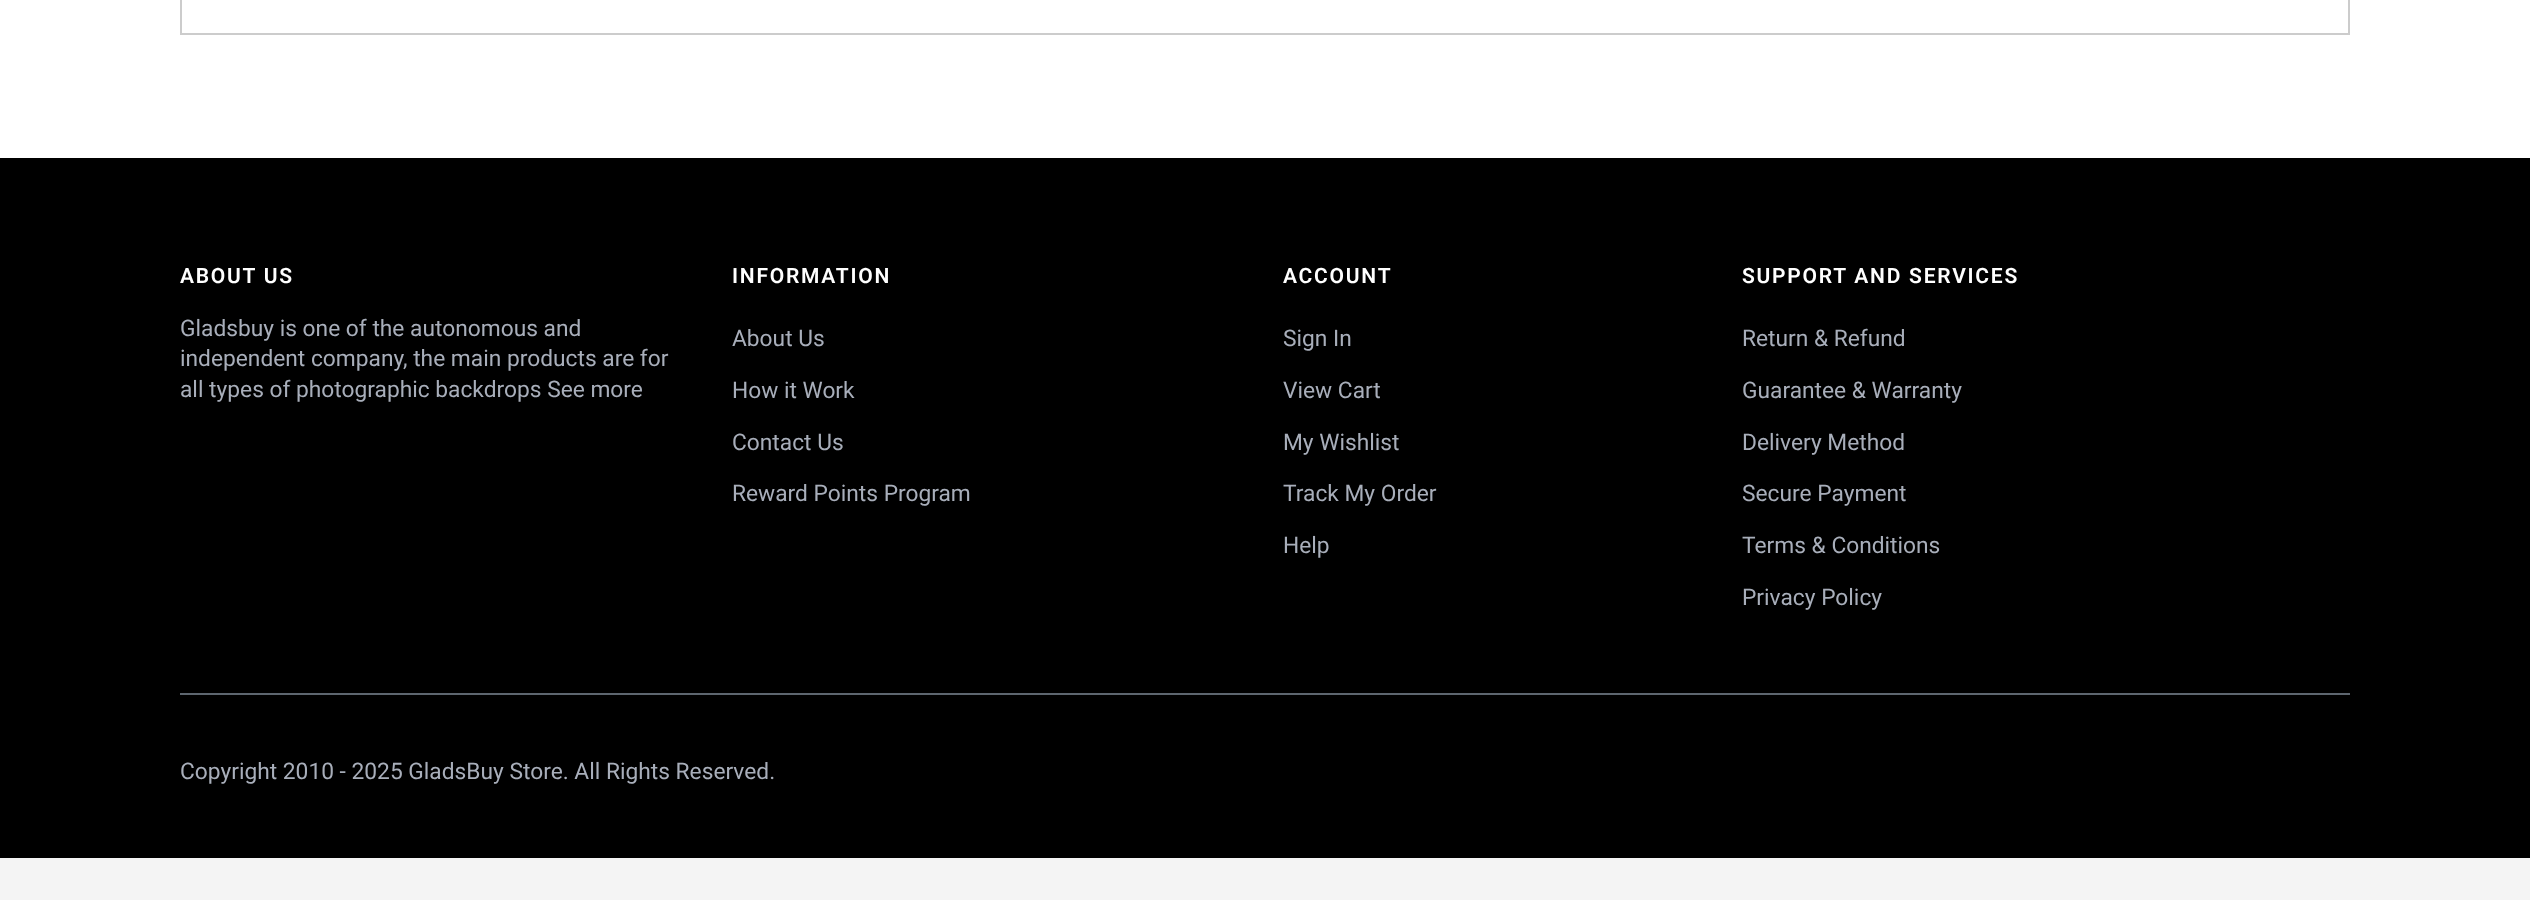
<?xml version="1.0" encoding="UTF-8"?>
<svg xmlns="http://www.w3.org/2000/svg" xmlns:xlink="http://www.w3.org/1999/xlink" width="2530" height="900">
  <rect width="100%" height="100%" fill="#ffffff" />
  <rect x="181" y="-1" width="2168" height="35" fill="none" stroke="#cccccc" stroke-width="2" />
  <rect y="858" width="2530" height="42" fill="#f4f4f4" />
  <rect y="158" width="2530" height="700" fill="#000000" />
  <rect x="180" y="693" width="2170" height="2" fill="#5d666f" />
  <text x="180" y="283" style="font-family: Roboto; font-size: 21px; font-weight: 600; letter-spacing: 1.75px; fill: #ffffff">ABOUT US</text>
  <text x="180" y="336" style="font-family: Roboto; font-size: 22.75px; fill: #a8aeba">Gladsbuy is one of the autonomous and</text>
  <text x="180" y="366" style="font-family: Roboto; font-size: 22.75px; fill: #a8aeba">independent company, the main products are for</text>
  <text x="180" y="397" style="font-family: Roboto; font-size: 22.75px; fill: #a8aeba">all types of photographic backdrops See more</text>
  <text x="732" y="283" style="font-family: Roboto; font-size: 21px; font-weight: 600; letter-spacing: 1.75px; fill: #ffffff">INFORMATION</text>
  <text x="732" y="346" style="font-family: Roboto; font-size: 22.75px; fill: #a8aeba">About Us</text>
  <text x="732" y="398" style="font-family: Roboto; font-size: 22.75px; fill: #a8aeba">How it Work</text>
  <text x="732" y="450" style="font-family: Roboto; font-size: 22.75px; fill: #a8aeba">Contact Us</text>
  <text x="732" y="501" style="font-family: Roboto; font-size: 22.75px; fill: #a8aeba">Reward Points Program</text>
  <text x="1283" y="283" style="font-family: Roboto; font-size: 21px; font-weight: 600; letter-spacing: 1.75px; fill: #ffffff">ACCOUNT</text>
  <text x="1283" y="346" style="font-family: Roboto; font-size: 22.75px; fill: #a8aeba">Sign In</text>
  <text x="1283" y="398" style="font-family: Roboto; font-size: 22.75px; fill: #a8aeba">View Cart</text>
  <text x="1283" y="450" style="font-family: Roboto; font-size: 22.75px; fill: #a8aeba">My Wishlist</text>
  <text x="1283" y="501" style="font-family: Roboto; font-size: 22.75px; fill: #a8aeba">Track My Order</text>
  <text x="1283" y="553" style="font-family: Roboto; font-size: 22.75px; fill: #a8aeba">Help</text>
  <text x="1742" y="283" style="font-family: Roboto; font-size: 21px; font-weight: 600; letter-spacing: 1.75px; fill: #ffffff">SUPPORT AND SERVICES</text>
  <text x="1742" y="346" style="font-family: Roboto; font-size: 22.75px; fill: #a8aeba">Return &amp; Refund</text>
  <text x="1742" y="398" style="font-family: Roboto; font-size: 22.75px; fill: #a8aeba">Guarantee &amp; Warranty</text>
  <text x="1742" y="450" style="font-family: Roboto; font-size: 22.75px; fill: #a8aeba">Delivery Method</text>
  <text x="1742" y="501" style="font-family: Roboto; font-size: 22.75px; fill: #a8aeba">Secure Payment</text>
  <text x="1742" y="553" style="font-family: Roboto; font-size: 22.75px; fill: #a8aeba">Terms &amp; Conditions</text>
  <text x="1742" y="605" style="font-family: Roboto; font-size: 22.75px; fill: #a8aeba">Privacy Policy</text>
  <text x="180" y="779" style="font-family: Roboto; font-size: 22.75px; fill: #a8aeba">Copyright 2010 - 2025 GladsBuy Store. All Rights Reserved.</text>
</svg>
